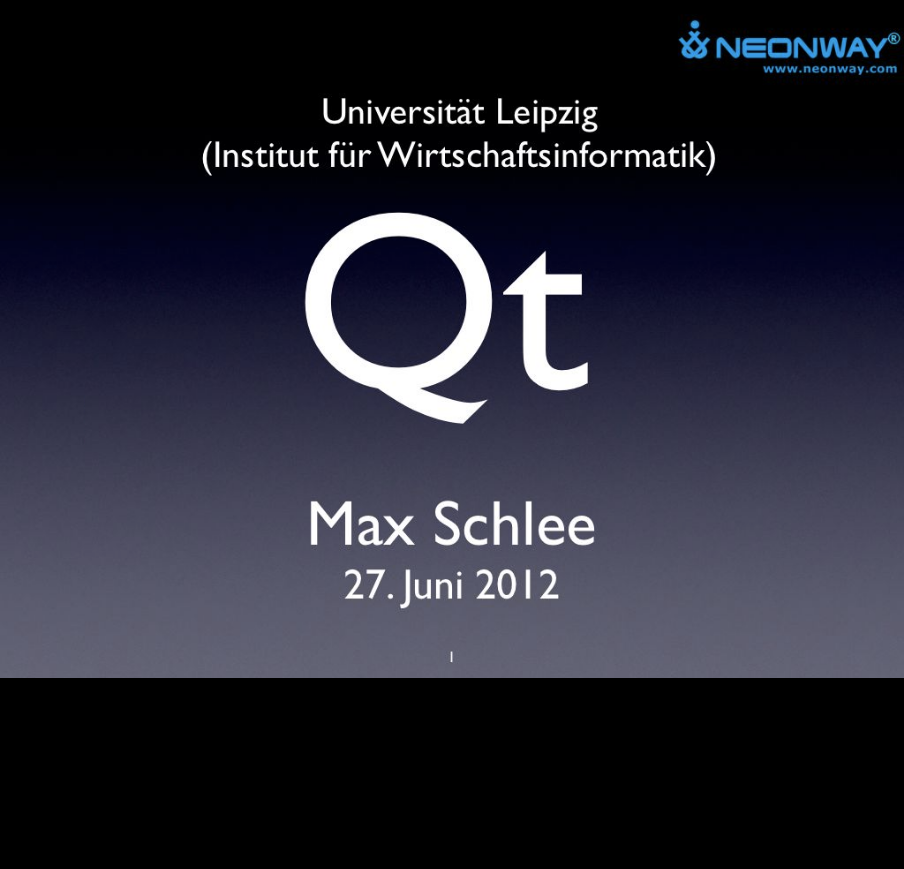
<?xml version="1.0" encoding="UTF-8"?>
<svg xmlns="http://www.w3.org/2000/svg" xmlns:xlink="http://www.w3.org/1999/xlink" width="904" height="869">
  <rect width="100%" height="100%" fill="#000000" />
  <image x="0" y="14" width="904" height="664" xlink:href="image1.png" />
  <image x="85" y="93" width="735" height="571" xlink:href="image2.png" />
</svg>
